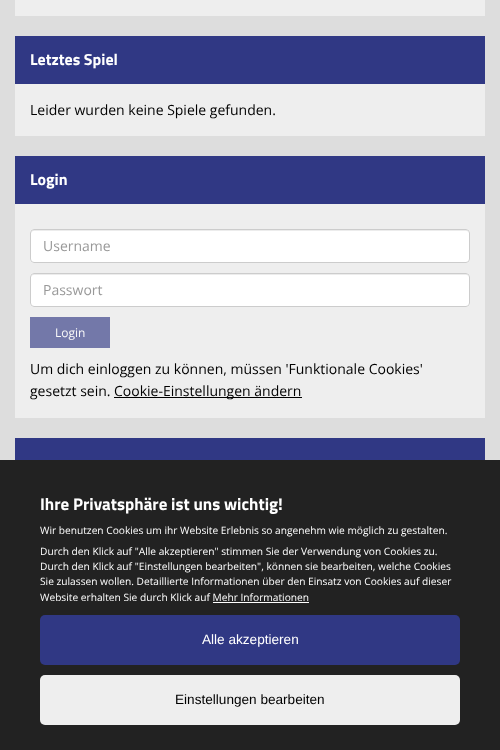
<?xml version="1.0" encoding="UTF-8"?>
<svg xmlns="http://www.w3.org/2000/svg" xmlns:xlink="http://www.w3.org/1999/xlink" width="500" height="750">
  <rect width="100%" height="100%" fill="#dddddd" />
  <rect x="15" width="470" height="16" fill="#eeeeee" />
  <rect x="15" y="84" width="470" height="52" fill="#eeeeee" />
  <rect x="15" y="36" width="470" height="48" fill="#303884" />
  <rect x="15" y="204" width="470" height="214" fill="#eeeeee" />
  <rect x="15" y="156" width="470" height="48" fill="#303884" />
  <rect x="30" y="229" width="440" height="34" rx="4" fill="#ffffff" />
  <path d="M 34 231 h 432 c 2 0 3 1 3 3 c 0 -2 -1 -4 -3 -4 h -433 l -2 2 v 2 c 0 -2 1 -3 3 -3 z" fill="#ececec" />
  <rect x="30.5" y="229.5" width="439" height="33" rx="3.5" fill="none" stroke="#cccccc" />
  <rect x="30" y="273" width="440" height="34" rx="4" fill="#ffffff" />
  <path d="M 34 275 h 432 c 2 0 3 1 3 3 c 0 -2 -1 -4 -3 -4 h -433 l -2 2 v 2 c 0 -2 1 -3 3 -3 z" fill="#ececec" />
  <rect x="30.5" y="273.5" width="439" height="33" rx="3.5" fill="none" stroke="#cccccc" />
  <rect x="30" y="317" width="80" height="31" fill="#7378a9" />
  <rect x="114" y="397" width="188" height="1" fill="#000000" />
  <rect x="15" y="438" width="470" height="22" fill="#303884" />
  <rect y="460" width="500" height="290" fill="#222222" />
  <rect x="213" y="602" width="96" height="1" fill="#ffffff" />
  <rect x="40" y="615" width="420" height="50" rx="5" fill="#303884" />
  <rect x="40" y="675" width="420" height="50" rx="5" fill="#eeeeee" />
  <text x="30" y="65" style="font-family: Titillium Web; font-size: 16px; font-weight: bold; fill: #ffffff">Letztes Spiel</text>
  <text x="30" y="115" style="font-family: Open Sans; font-size: 14px; fill: #000000">Leider wurden keine Spiele gefunden.</text>
  <text x="30" y="185" style="font-family: Titillium Web; font-size: 16px; font-weight: bold; fill: #ffffff">Login</text>
  <text x="43" y="251" style="font-family: Open Sans; font-size: 14px; fill: #999999">Username</text>
  <text x="43" y="295" style="font-family: Open Sans; font-size: 14px; fill: #999999">Passwort</text>
  <text x="55" y="337" style="font-family: Open Sans; font-size: 12px; fill: #f9f9f9">Login</text>
  <text x="30" y="374" style="font-family: Open Sans; font-size: 14px; fill: #000000">Um dich einloggen zu können, müssen 'Funktionale Cookies'</text>
  <text x="30" y="396" style="font-family: Open Sans; font-size: 14px; fill: #000000">gesetzt sein.</text>
  <text x="114" y="396" style="font-family: Open Sans; font-size: 14px; fill: #000000">Cookie-Einstellungen ändern</text>
  <text x="40" y="510" style="font-family: Titillium Web; font-size: 17px; font-weight: bold; fill: #ffffff">Ihre Privatsphäre ist uns wichtig!</text>
  <text x="40" y="534" style="font-family: Open Sans; font-size: 10.2px; fill: #ffffff">Wir benutzen Cookies um ihr Website Erlebnis so angenehm wie möglich zu gestalten.</text>
  <text x="40" y="555" style="font-family: Open Sans; font-size: 10.2px; fill: #ffffff">Durch den Klick auf "Alle akzeptieren" stimmen Sie der Verwendung von Cookies zu.</text>
  <text x="40" y="570" style="font-family: Open Sans; font-size: 10.2px; fill: #ffffff">Durch den Klick auf "Einstellungen bearbeiten", können sie bearbeiten, welche Cookies</text>
  <text x="40" y="585" style="font-family: Open Sans; font-size: 10.2px; fill: #ffffff">Sie zulassen wollen. Detaillierte Informationen über den Einsatz von Cookies auf dieser</text>
  <text x="40" y="601" style="font-family: Open Sans; font-size: 10.2px; fill: #ffffff">Website erhalten Sie durch Klick auf Mehr Informationen</text>
  <text x="202" y="644" style="font-family: Liberation Sans; font-size: 13.6px; fill: #ffffff">Alle akzeptieren</text>
  <text x="175" y="704" style="font-family: Liberation Sans; font-size: 13.6px; fill: #000000">Einstellungen bearbeiten</text>
</svg>
